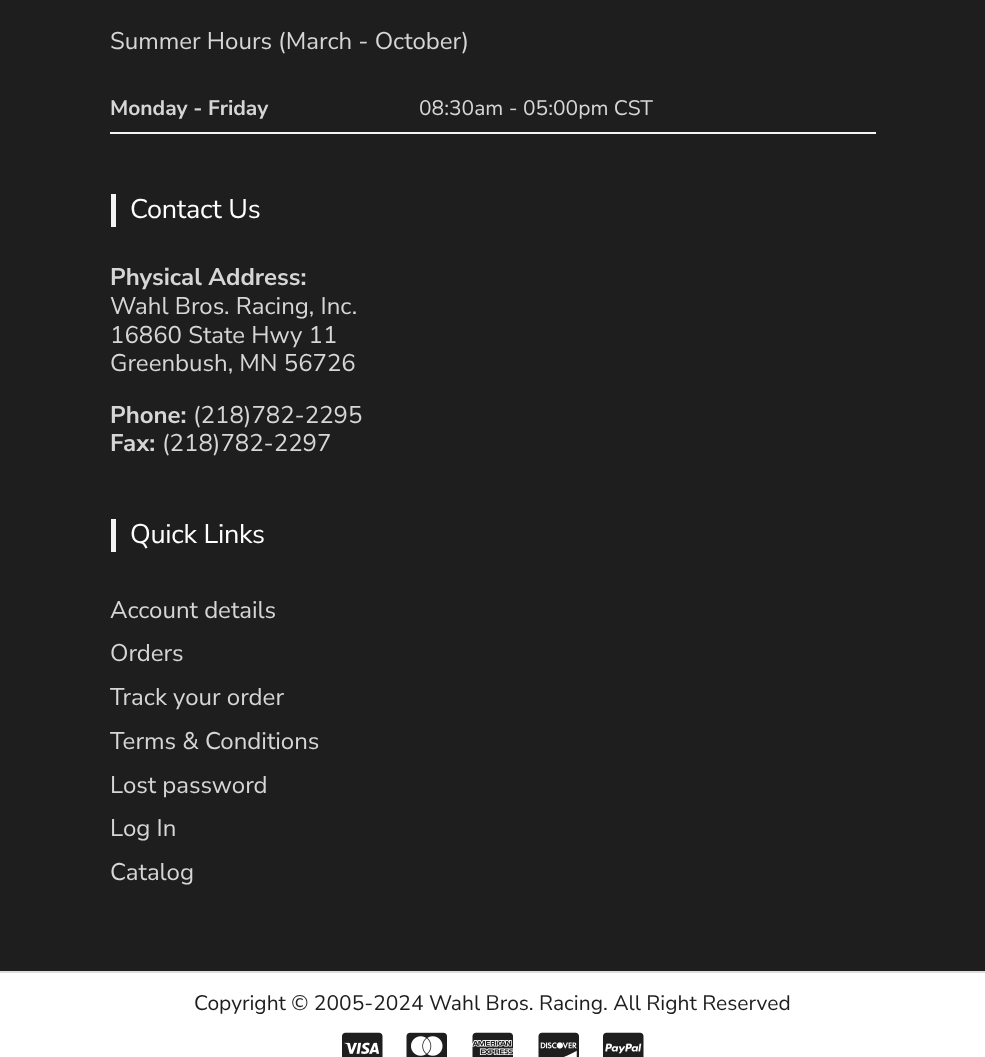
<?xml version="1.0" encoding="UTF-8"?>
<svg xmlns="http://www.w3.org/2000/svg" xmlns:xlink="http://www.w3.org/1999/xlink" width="985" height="1057">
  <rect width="100%" height="100%" fill="#ffffff" />
  <rect width="985" height="971" fill="#1e1e1e" />
  <rect x="110" y="132" width="766" height="2" fill="#f4f4f4" />
  <rect x="111" y="194" width="5" height="33" fill="#f4f4f4" />
  <rect x="111" y="519" width="5" height="33" fill="#f4f4f4" />
  <rect y="971" width="985" height="2" fill="#dddddd" />
  <image x="342" y="1032" width="41" height="25" xlink:href="image1.png" />
  <image x="406" y="1032" width="41" height="25" xlink:href="image2.png" />
  <image x="472" y="1032" width="41" height="25" xlink:href="image3.png" />
  <image x="538" y="1032" width="41" height="25" xlink:href="image4.png" />
  <image x="603" y="1032" width="41" height="25" xlink:href="image5.png" />
  <text x="110" y="49" style="font-family: Nunito Sans; font-size: 24px; fill: #d6d6d6">Summer Hours (March - October)</text>
  <text x="110" y="115" style="font-family: Nunito Sans; font-size: 21px; font-weight: bold; fill: #d6d6d6">Monday - Friday</text>
  <text x="419" y="115" style="font-family: Nunito Sans; font-size: 21px; fill: #d6d6d6">08:30am - 05:00pm CST</text>
  <text x="130" y="218" style="font-family: Nunito Sans; font-size: 27px; letter-spacing: -0.25px; fill: #ffffff">Contact Us</text>
  <text x="110" y="285" style="font-family: Nunito Sans; font-size: 24px; font-weight: bold; fill: #d6d6d6">Physical Address:</text>
  <text x="110" y="314" style="font-family: Nunito Sans; font-size: 24px; fill: #d6d6d6">Wahl Bros. Racing, Inc.</text>
  <text x="110" y="343" style="font-family: Nunito Sans; font-size: 24px; fill: #d6d6d6">16860 State Hwy 11</text>
  <text x="110" y="371" style="font-family: Nunito Sans; font-size: 24px; fill: #d6d6d6">Greenbush, MN 56726</text>
  <text x="110" y="423" style="font-family: Nunito Sans; font-size: 24px; font-weight: bold; fill: #d6d6d6">Phone:</text>
  <text x="193" y="423" style="font-family: Nunito Sans; font-size: 24px; fill: #d6d6d6">(218)782-2295</text>
  <text x="110" y="451" style="font-family: Nunito Sans; font-size: 24px; font-weight: bold; fill: #d6d6d6">Fax:</text>
  <text x="162" y="451" style="font-family: Nunito Sans; font-size: 24px; fill: #d6d6d6">(218)782-2297</text>
  <text x="130" y="543" style="font-family: Nunito Sans; font-size: 27px; letter-spacing: -0.25px; fill: #ffffff">Quick Links</text>
  <text x="110" y="618" style="font-family: Nunito Sans; font-size: 24px; fill: #d6d6d6">Account details</text>
  <text x="110" y="661" style="font-family: Nunito Sans; font-size: 24px; fill: #d6d6d6">Orders</text>
  <text x="110" y="705" style="font-family: Nunito Sans; font-size: 24px; fill: #d6d6d6">Track your order</text>
  <text x="110" y="749" style="font-family: Nunito Sans; font-size: 24px; fill: #d6d6d6">Terms &amp; Conditions</text>
  <text x="110" y="793" style="font-family: Nunito Sans; font-size: 24px; fill: #d6d6d6">Lost password</text>
  <text x="110" y="836" style="font-family: Nunito Sans; font-size: 24px; fill: #d6d6d6">Log In</text>
  <text x="110" y="880" style="font-family: Nunito Sans; font-size: 24px; fill: #d6d6d6">Catalog</text>
  <text x="194" y="1010" style="font-family: Nunito Sans; font-size: 21px; fill: #1e1e1e">Copyright © 2005-2024 Wahl Bros. Racing. All Right Reserved</text>
</svg>
